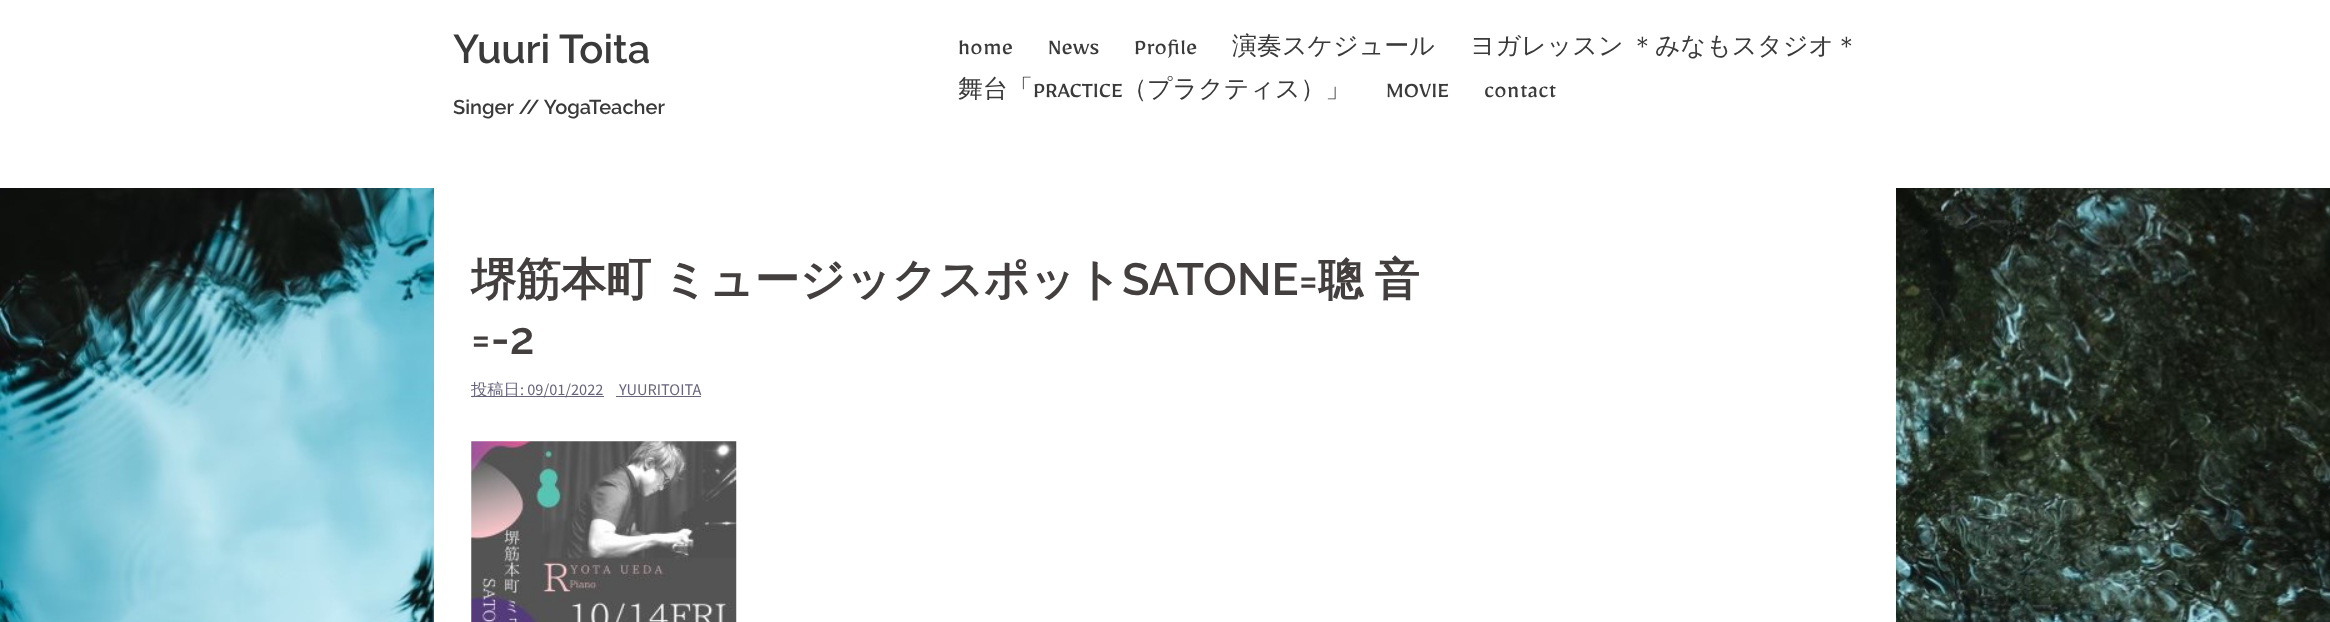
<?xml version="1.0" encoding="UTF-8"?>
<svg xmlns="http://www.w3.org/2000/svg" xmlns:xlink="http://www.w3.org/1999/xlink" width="2330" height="622">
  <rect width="100%" height="100%" fill="#ffffff" />
  <image x="0" y="188" width="2330" height="434" xlink:href="image1.png" />
  <rect x="434" y="188" width="1462" height="434" fill="#ffffff" />
  <rect x="471" y="396" width="133" height="1" fill="#68647a" />
  <rect x="616" y="396" width="85" height="1" fill="#68647a" />
  <image x="471" y="441" width="266" height="181" xlink:href="image2.png" />
  <text x="453" y="63" style="font-family: Raleway; font-size: 40px; font-weight: 600; fill: #3a3a3a">Yuuri Toita</text>
  <text x="453" y="114" style="font-family: Raleway; font-size: 20px; font-weight: 600; fill: #3a3a3a">Singer // YogaTeacher</text>
  <text x="958" y="54" style="font-family: Mirza; font-size: 25px; fill: #3a3a3a">home</text>
  <text x="1048" y="54" style="font-family: Mirza; font-size: 25px; fill: #3a3a3a">News</text>
  <text x="1134" y="54" style="font-family: Mirza; font-size: 25px; fill: #3a3a3a">Profile</text>
  <text x="1232" y="54" style="font-family: WenQuanYi Zen Hei; font-size: 25px; font-weight: 500; fill: #3a3a3a">演奏スケジュール</text>
  <text x="1470" y="54" word-spacing="-1" style="font-family: WenQuanYi Zen Hei; font-size: 25px; font-weight: 500; fill: #3a3a3a">ヨガレッスン ＊みなもスタジオ＊</text>
  <text x="958" y="97" style="font-family: WenQuanYi Zen Hei; font-size: 25px; font-weight: 500; fill: #3a3a3a">舞台「</text>
  <text x="1033" y="97" style="font-family: Mirza; font-size: 25px; fill: #3a3a3a">PRACTICE</text>
  <text x="1122" y="97" style="font-family: WenQuanYi Zen Hei; font-size: 25px; font-weight: 500; fill: #3a3a3a">（プラクティス）」</text>
  <text x="1386" y="97" style="font-family: Mirza; font-size: 25px; fill: #3a3a3a">MOVIE</text>
  <text x="1484" y="97" style="font-family: Mirza; font-size: 25px; fill: #3a3a3a">contact</text>
  <text x="471" y="295" word-spacing="-2" style="font-family: WenQuanYi Zen Hei; font-size: 45px; font-weight: bold; fill: #443f3f">堺筋本町 ミュージックスポット</text>
  <text x="1122" y="295" style="font-family: Raleway; font-size: 45px; font-weight: 600; fill: #443f3f">SATONE=</text>
  <text x="1318" y="295" word-spacing="-2" style="font-family: WenQuanYi Zen Hei; font-size: 45px; font-weight: bold; fill: #443f3f">聰 音</text>
  <text x="471" y="354" style="font-family: Raleway; font-size: 45px; font-weight: 600; fill: #443f3f">=-2</text>
  <text x="471" y="395" style="font-family: WenQuanYi Zen Hei; font-size: 16.25px; font-weight: 500; fill: #68647a">投稿日</text>
  <text x="520" y="395" style="font-family: Source Sans Pro; font-size: 16.25px; fill: #68647a">: 09/01/2022</text>
  <text x="619" y="395" style="font-family: Source Sans Pro; font-size: 16.25px; fill: #68647a">YUURITOITA</text>
</svg>
